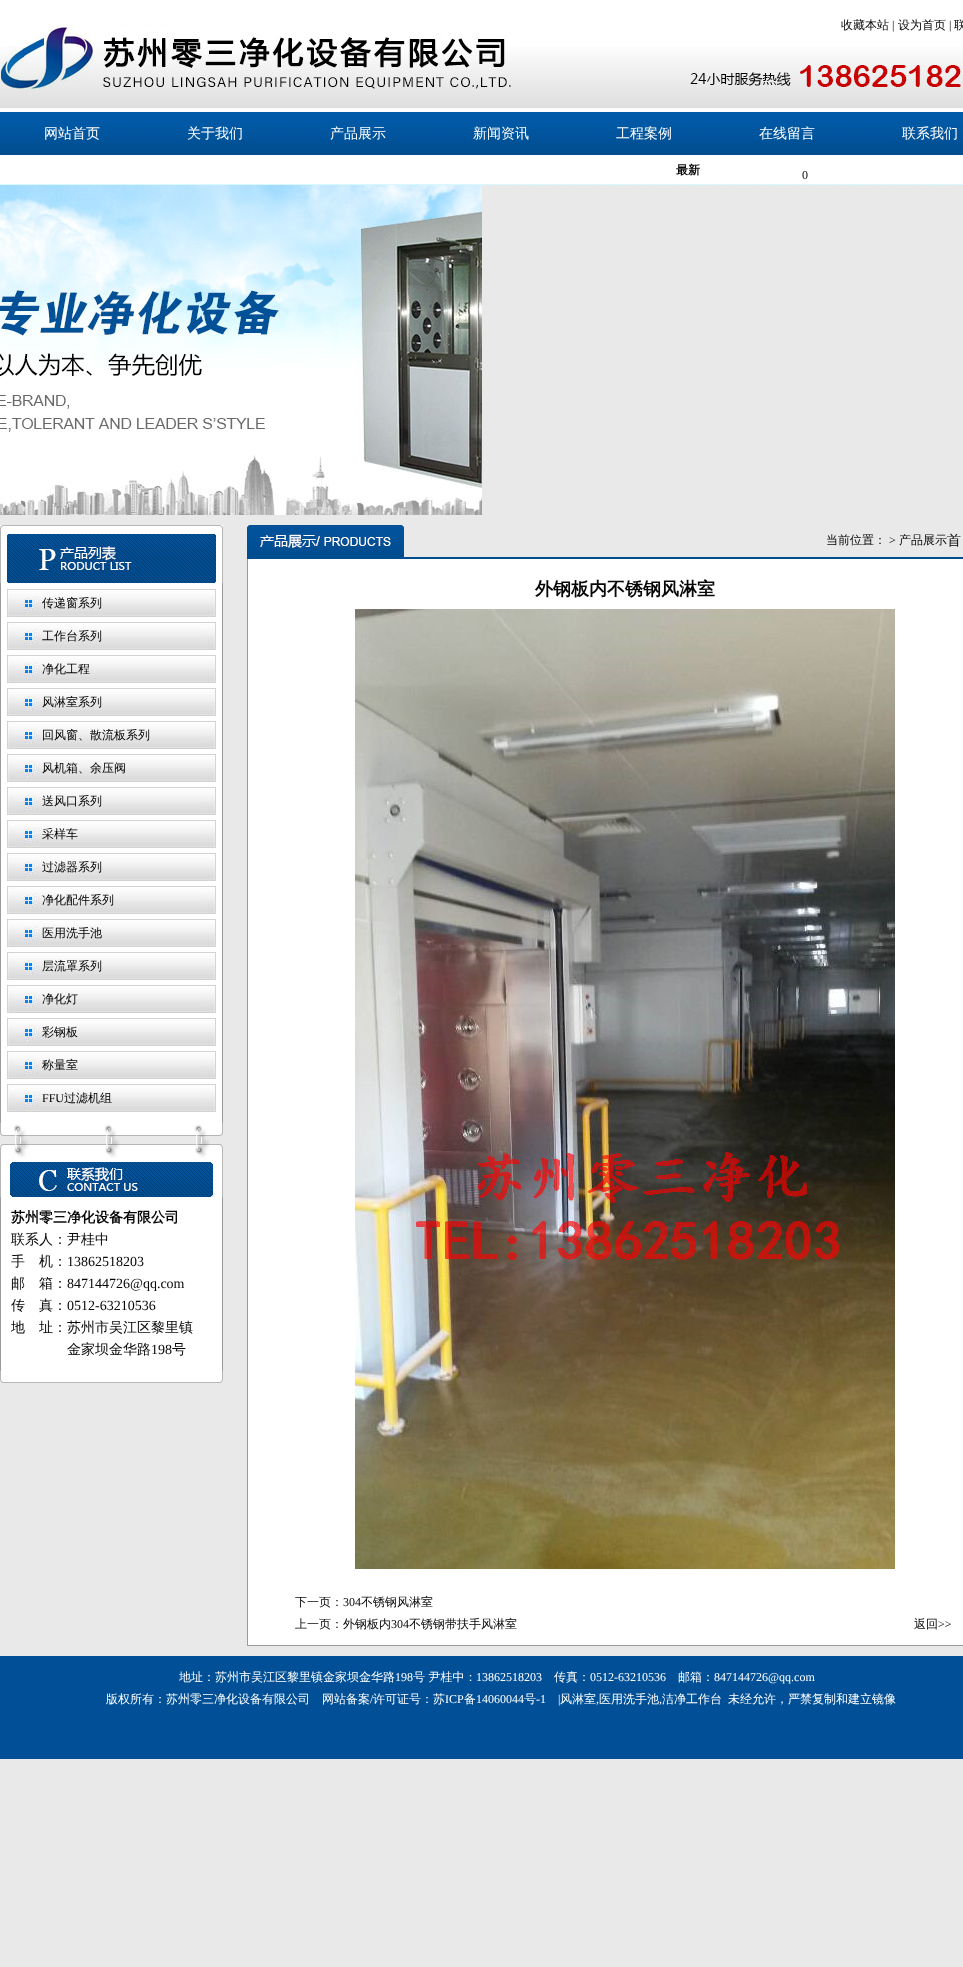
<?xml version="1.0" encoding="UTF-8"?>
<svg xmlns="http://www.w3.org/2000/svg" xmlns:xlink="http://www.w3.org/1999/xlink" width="963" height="1967">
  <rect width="100%" height="100%" fill="#e9e9e9" />
  <image x="0" y="0" width="963" height="185" xlink:href="image1.png" />
  <image x="1" y="24" width="962" height="72" xlink:href="image2.png" />
  <image x="0" y="185" width="482" height="330" xlink:href="image3.png" />
  <rect x="1" y="583" width="221" height="788" fill="#ffffff" />
  <image x="0" y="525" width="223" height="58" xlink:href="image4.png" />
  <rect x="222" y="583" width="1" height="540" fill="#9b9b9b" />
  <rect y="583" width="1" height="540" fill="#9b9b9b" />
  <image x="7" y="589" width="209" height="28" xlink:href="image5.png" />
  <image x="7" y="622" width="209" height="28" xlink:href="image5.png" />
  <image x="7" y="655" width="209" height="28" xlink:href="image5.png" />
  <image x="7" y="688" width="209" height="28" xlink:href="image5.png" />
  <image x="7" y="721" width="209" height="28" xlink:href="image5.png" />
  <image x="7" y="754" width="209" height="28" xlink:href="image5.png" />
  <image x="7" y="787" width="209" height="28" xlink:href="image5.png" />
  <image x="7" y="820" width="209" height="28" xlink:href="image5.png" />
  <image x="7" y="853" width="209" height="28" xlink:href="image5.png" />
  <image x="7" y="886" width="209" height="28" xlink:href="image5.png" />
  <image x="7" y="919" width="209" height="28" xlink:href="image5.png" />
  <image x="7" y="952" width="209" height="28" xlink:href="image5.png" />
  <image x="7" y="985" width="209" height="28" xlink:href="image5.png" />
  <image x="7" y="1018" width="209" height="28" xlink:href="image5.png" />
  <image x="7" y="1051" width="209" height="28" xlink:href="image5.png" />
  <image x="7" y="1084" width="209" height="28" xlink:href="image5.png" />
  <image x="0" y="1123" width="223" height="74" xlink:href="image6.png" />
  <rect x="222" y="1197" width="1" height="174" fill="#9b9b9b" />
  <rect y="1197" width="1" height="174" fill="#9b9b9b" />
  <image x="0" y="1371" width="223" height="12" xlink:href="image7.png" />
  <rect x="247" y="557" width="716" height="2" fill="#004d91" />
  <image x="247" y="525" width="157" height="32" xlink:href="image8.png" />
  <rect x="248" y="559" width="715" height="1086" fill="#ffffff" />
  <rect x="247" y="1645" width="716" height="1" fill="#9b9b9b" />
  <rect x="247" y="559" width="1" height="1087" fill="#9b9b9b" />
  <image x="355" y="609" width="540" height="960" xlink:href="image9.png" />
  <rect y="1656" width="963" height="103" fill="#015097" />
  <text x="841" y="29" style="font-family: WenQuanYi Zen Hei; font-size: 12px; font-weight: 500; fill: #060606">收藏本站</text>
  <text x="892" y="29" style="font-family: Liberation Serif; font-size: 12px; fill: #060606">|</text>
  <text x="898" y="29" style="font-family: WenQuanYi Zen Hei; font-size: 12px; font-weight: 500; fill: #060606">设为首页</text>
  <text x="949" y="29" style="font-family: Liberation Serif; font-size: 12px; fill: #060606">|</text>
  <text x="954" y="29" style="font-family: WenQuanYi Zen Hei; font-size: 12px; font-weight: 500; fill: #060606">联</text>
  <text x="44" y="138" style="font-family: WenQuanYi Zen Hei; font-size: 14px; font-weight: 500; fill: #ffffff">网站首页</text>
  <text x="187" y="138" style="font-family: WenQuanYi Zen Hei; font-size: 14px; font-weight: 500; fill: #ffffff">关于我们</text>
  <text x="330" y="138" style="font-family: WenQuanYi Zen Hei; font-size: 14px; font-weight: 500; fill: #ffffff">产品展示</text>
  <text x="473" y="138" style="font-family: WenQuanYi Zen Hei; font-size: 14px; font-weight: 500; fill: #ffffff">新闻资讯</text>
  <text x="616" y="138" style="font-family: WenQuanYi Zen Hei; font-size: 14px; font-weight: 500; fill: #ffffff">工程案例</text>
  <text x="759" y="138" style="font-family: WenQuanYi Zen Hei; font-size: 14px; font-weight: 500; fill: #ffffff">在线留言</text>
  <text x="902" y="138" style="font-family: WenQuanYi Zen Hei; font-size: 14px; font-weight: 500; fill: #ffffff">联系我们</text>
  <text x="676" y="174" style="font-family: WenQuanYi Zen Hei; font-size: 12px; font-weight: bold; fill: #060606">最新</text>
  <text x="802" y="179" style="font-family: Liberation Serif; font-size: 12px; fill: #060606">0</text>
  <text x="42" y="607" style="font-family: WenQuanYi Zen Hei; font-size: 12px; font-weight: 500; fill: #000000">传递窗系列</text>
  <text x="42" y="640" style="font-family: WenQuanYi Zen Hei; font-size: 12px; font-weight: 500; fill: #000000">工作台系列</text>
  <text x="42" y="673" style="font-family: WenQuanYi Zen Hei; font-size: 12px; font-weight: 500; fill: #000000">净化工程</text>
  <text x="42" y="706" style="font-family: WenQuanYi Zen Hei; font-size: 12px; font-weight: 500; fill: #000000">风淋室系列</text>
  <text x="42" y="739" style="font-family: WenQuanYi Zen Hei; font-size: 12px; font-weight: 500; fill: #000000">回风窗、散流板系列</text>
  <text x="42" y="772" style="font-family: WenQuanYi Zen Hei; font-size: 12px; font-weight: 500; fill: #000000">风机箱、余压阀</text>
  <text x="42" y="805" style="font-family: WenQuanYi Zen Hei; font-size: 12px; font-weight: 500; fill: #000000">送风口系列</text>
  <text x="42" y="838" style="font-family: WenQuanYi Zen Hei; font-size: 12px; font-weight: 500; fill: #000000">采样车</text>
  <text x="42" y="871" style="font-family: WenQuanYi Zen Hei; font-size: 12px; font-weight: 500; fill: #000000">过滤器系列</text>
  <text x="42" y="904" style="font-family: WenQuanYi Zen Hei; font-size: 12px; font-weight: 500; fill: #000000">净化配件系列</text>
  <text x="42" y="937" style="font-family: WenQuanYi Zen Hei; font-size: 12px; font-weight: 500; fill: #000000">医用洗手池</text>
  <text x="42" y="970" style="font-family: WenQuanYi Zen Hei; font-size: 12px; font-weight: 500; fill: #000000">层流罩系列</text>
  <text x="42" y="1003" style="font-family: WenQuanYi Zen Hei; font-size: 12px; font-weight: 500; fill: #000000">净化灯</text>
  <text x="42" y="1036" style="font-family: WenQuanYi Zen Hei; font-size: 12px; font-weight: 500; fill: #000000">彩钢板</text>
  <text x="42" y="1069" style="font-family: WenQuanYi Zen Hei; font-size: 12px; font-weight: 500; fill: #000000">称量室</text>
  <text x="42" y="1102" style="font-family: Liberation Serif; font-size: 12px; fill: #000000">FFU</text>
  <text x="64" y="1102" style="font-family: WenQuanYi Zen Hei; font-size: 12px; font-weight: 500; fill: #000000">过滤机组</text>
  <text x="11" y="1222" style="font-family: WenQuanYi Zen Hei; font-size: 14px; font-weight: bold; fill: #060606">苏州零三净化设备有限公司</text>
  <text x="11" y="1244" style="font-family: WenQuanYi Zen Hei; font-size: 14px; font-weight: 500; fill: #060606">联系人：尹桂中</text>
  <text x="11" y="1266" style="font-family: WenQuanYi Zen Hei; font-size: 14px; font-weight: 500; fill: #060606">手</text>
  <text x="39" y="1266" style="font-family: WenQuanYi Zen Hei; font-size: 14px; font-weight: 500; fill: #060606">机：</text>
  <text x="67" y="1266" style="font-family: Liberation Serif; font-size: 14px; fill: #060606">13862518203</text>
  <text x="11" y="1288" style="font-family: WenQuanYi Zen Hei; font-size: 14px; font-weight: 500; fill: #060606">邮　箱：</text>
  <text x="67" y="1288" style="font-family: Liberation Serif; font-size: 14px; fill: #060606">847144726@qq.com</text>
  <text x="11" y="1310" style="font-family: WenQuanYi Zen Hei; font-size: 14px; font-weight: 500; fill: #060606">传　真：</text>
  <text x="67" y="1310" style="font-family: Liberation Serif; font-size: 14px; fill: #060606">0512-63210536</text>
  <text x="11" y="1332" style="font-family: WenQuanYi Zen Hei; font-size: 14px; font-weight: 500; fill: #060606">地　址：苏州市吴江区黎里镇</text>
  <text x="67" y="1354" style="font-family: WenQuanYi Zen Hei; font-size: 14px; font-weight: 500; fill: #060606">金家坝金华路</text>
  <text x="151" y="1354" style="font-family: Liberation Serif; font-size: 14px; fill: #060606">198</text>
  <text x="172" y="1354" style="font-family: WenQuanYi Zen Hei; font-size: 14px; font-weight: 500; fill: #060606">号</text>
  <text x="826" y="544" style="font-family: WenQuanYi Zen Hei; font-size: 12px; font-weight: 500; fill: #060606">当前位置：</text>
  <text x="889" y="544" style="font-family: Liberation Serif; font-size: 12px; fill: #060606">&gt;</text>
  <text x="899" y="544" style="font-family: WenQuanYi Zen Hei; font-size: 12px; font-weight: 500; fill: #060606">产品展示</text>
  <text x="947" y="545" style="font-family: WenQuanYi Zen Hei; font-size: 14px; font-weight: 500; fill: #060606">首</text>
  <text x="535" y="595" style="font-family: WenQuanYi Zen Hei; font-size: 18px; font-weight: bold; fill: #060606">外钢板内不锈钢风淋室</text>
  <text x="295" y="1606" style="font-family: WenQuanYi Zen Hei; font-size: 12px; font-weight: 500; fill: #060606">下一页：</text>
  <text x="343" y="1606" style="font-family: Liberation Serif; font-size: 12px; fill: #060606">304</text>
  <text x="361" y="1606" style="font-family: WenQuanYi Zen Hei; font-size: 12px; font-weight: 500; fill: #060606">不锈钢风淋室</text>
  <text x="295" y="1628" style="font-family: WenQuanYi Zen Hei; font-size: 12px; font-weight: 500; fill: #060606">上一页：外钢板内</text>
  <text x="391" y="1628" style="font-family: Liberation Serif; font-size: 12px; fill: #060606">304</text>
  <text x="409" y="1628" style="font-family: WenQuanYi Zen Hei; font-size: 12px; font-weight: 500; fill: #060606">不锈钢带扶手风淋室</text>
  <text x="914" y="1628" style="font-family: WenQuanYi Zen Hei; font-size: 12px; font-weight: 500; fill: #060606">返回</text>
  <text x="938" y="1628" style="font-family: Liberation Serif; font-size: 12px; fill: #060606">&gt;&gt;</text>
  <text x="179" y="1681" style="font-family: WenQuanYi Zen Hei; font-size: 12px; font-weight: 500; fill: #ffffff">地址：苏州市吴江区黎里镇金家坝金华路</text>
  <text x="395" y="1681" style="font-family: Liberation Serif; font-size: 12px; fill: #ffffff">198</text>
  <text x="413" y="1681" style="font-family: WenQuanYi Zen Hei; font-size: 12px; font-weight: 500; fill: #ffffff">号 尹桂中：</text>
  <text x="476" y="1681" style="font-family: Liberation Serif; font-size: 12px; fill: #ffffff">13862518203</text>
  <text x="554" y="1681" style="font-family: WenQuanYi Zen Hei; font-size: 12px; font-weight: 500; fill: #ffffff">传真：</text>
  <text x="590" y="1681" style="font-family: Liberation Serif; font-size: 12px; fill: #ffffff">0512-63210536</text>
  <text x="678" y="1681" style="font-family: WenQuanYi Zen Hei; font-size: 12px; font-weight: 500; fill: #ffffff">邮箱：</text>
  <text x="714" y="1681" style="font-family: Liberation Serif; font-size: 12px; fill: #ffffff">847144726@qq.com</text>
  <text x="106" y="1703" style="font-family: WenQuanYi Zen Hei; font-size: 12px; font-weight: 500; fill: #ffffff">版权所有：苏州零三净化设备有限公司</text>
  <text x="322" y="1703" style="font-family: WenQuanYi Zen Hei; font-size: 12px; font-weight: 500; fill: #ffffff">网站备案</text>
  <text x="370" y="1703" style="font-family: Liberation Serif; font-size: 12px; fill: #ffffff">/</text>
  <text x="373" y="1703" style="font-family: WenQuanYi Zen Hei; font-size: 12px; font-weight: 500; fill: #ffffff">许可证号：苏</text>
  <text x="445" y="1703" style="font-family: Liberation Serif; font-size: 12px; fill: #ffffff">ICP</text>
  <text x="464" y="1703" style="font-family: WenQuanYi Zen Hei; font-size: 12px; font-weight: 500; fill: #ffffff">备</text>
  <text x="476" y="1703" style="font-family: Liberation Serif; font-size: 12px; fill: #ffffff">14060044</text>
  <text x="524" y="1703" style="font-family: WenQuanYi Zen Hei; font-size: 12px; font-weight: 500; fill: #ffffff">号</text>
  <text x="536" y="1703" style="font-family: Liberation Serif; font-size: 12px; fill: #ffffff">-1</text>
  <text x="558" y="1703" style="font-family: Liberation Serif; font-size: 12px; fill: #ffffff">|</text>
  <text x="560" y="1703" style="font-family: WenQuanYi Zen Hei; font-size: 12px; font-weight: 500; fill: #ffffff">风淋室</text>
  <text x="596" y="1703" style="font-family: Liberation Serif; font-size: 12px; fill: #ffffff">,</text>
  <text x="599" y="1703" style="font-family: WenQuanYi Zen Hei; font-size: 12px; font-weight: 500; fill: #ffffff">医用洗手池</text>
  <text x="659" y="1703" style="font-family: Liberation Serif; font-size: 12px; fill: #ffffff">,</text>
  <text x="662" y="1703" style="font-family: WenQuanYi Zen Hei; font-size: 12px; font-weight: 500; fill: #ffffff">洁净工作台</text>
  <text x="728" y="1703" style="font-family: WenQuanYi Zen Hei; font-size: 12px; font-weight: 500; fill: #ffffff">未经允许，严禁复制和建立镜像</text>
</svg>
